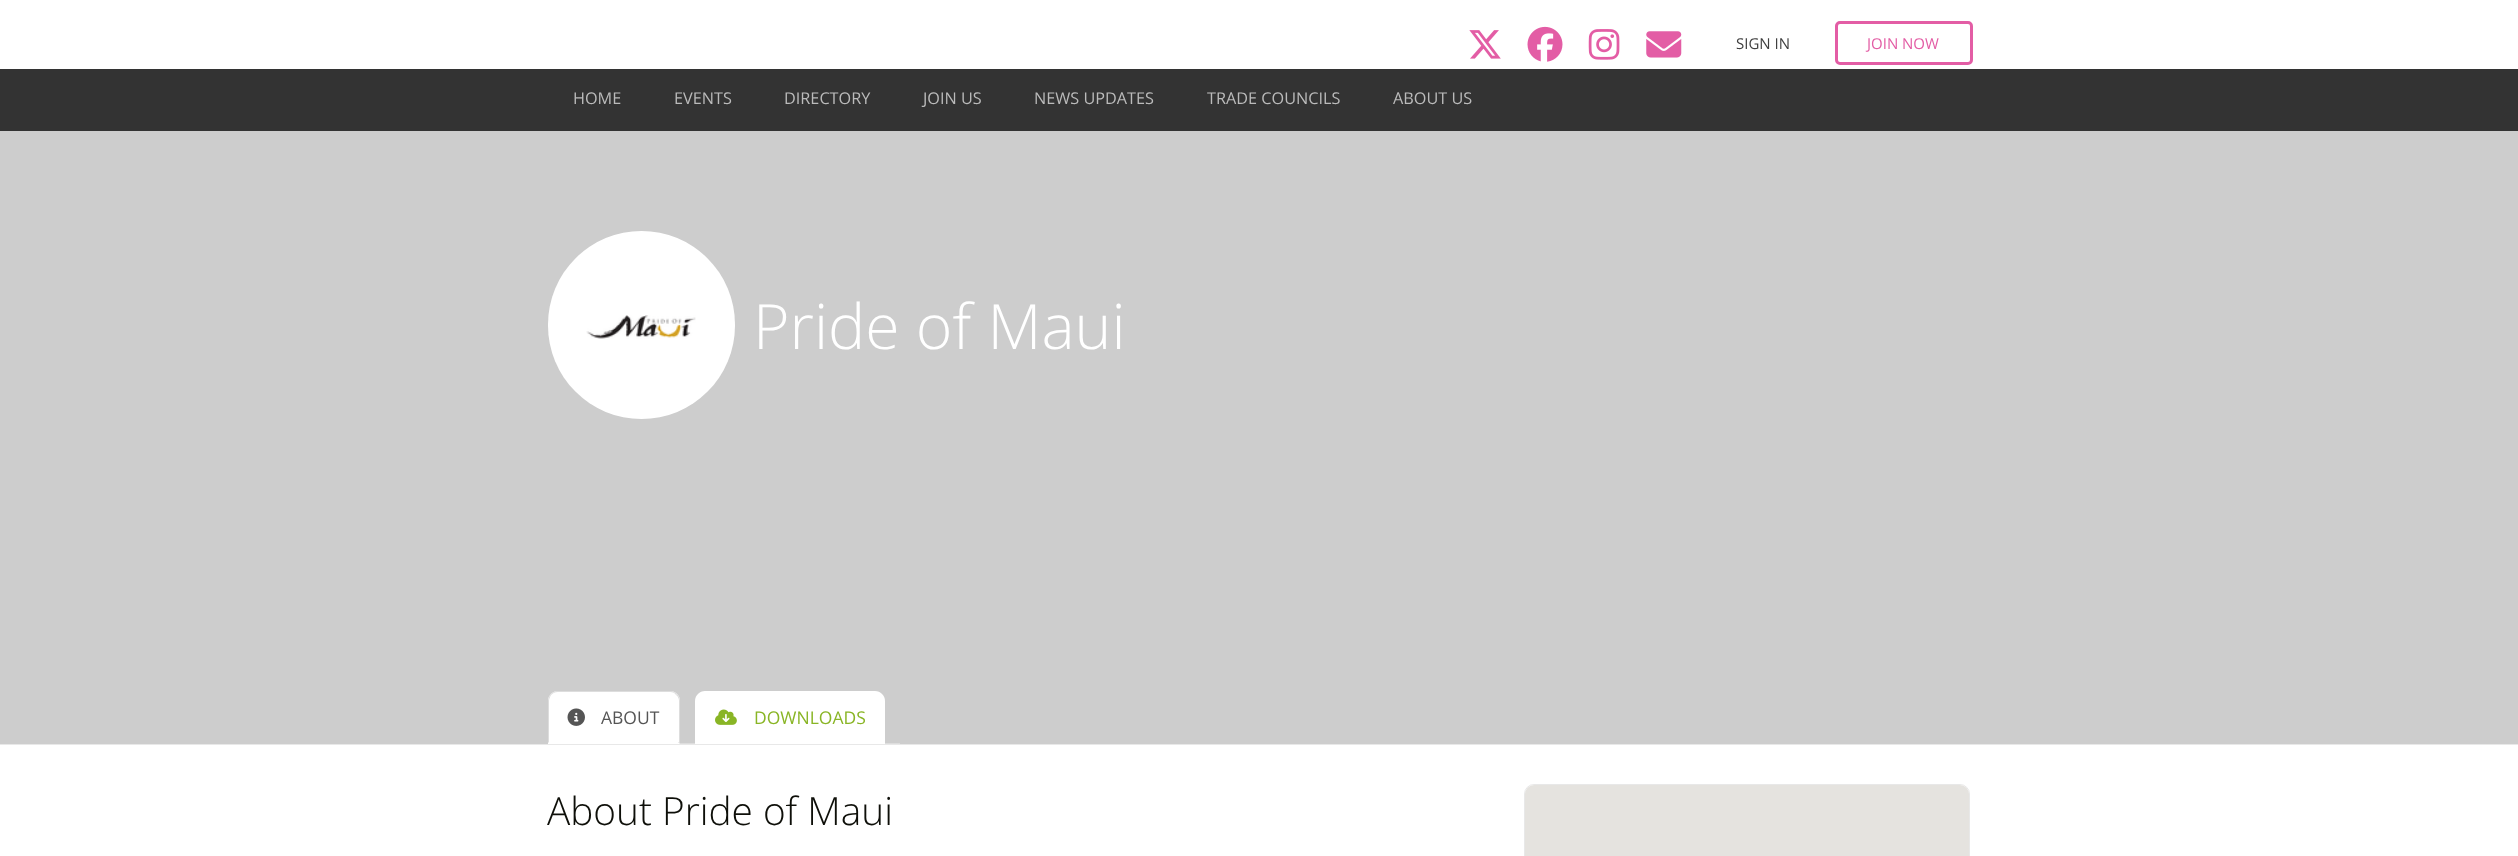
<?xml version="1.0" encoding="UTF-8"?>
<svg xmlns="http://www.w3.org/2000/svg" xmlns:xlink="http://www.w3.org/1999/xlink" width="2518" height="856">
  <rect width="100%" height="100%" fill="#ffffff" />
  <image x="1469" y="30" width="32" height="29" xlink:href="image1.png" />
  <image x="1527" y="26" width="36" height="36" xlink:href="image2.png" />
  <image x="1588" y="29" width="32" height="31" xlink:href="image3.png" />
  <image x="1646" y="31" width="36" height="27" xlink:href="image4.png" />
  <rect x="1836.5" y="22.5" width="135" height="41" rx="3.5" fill="none" stroke="#e35da5" stroke-width="3" />
  <rect y="69" width="2518" height="62" fill="#333333" />
  <rect y="744" width="2518" height="1" fill="#e8e8e8" />
  <rect y="131" width="2518" height="613" fill="#cdcdcd" />
  <rect x="548" y="231" width="187" height="188" rx="93.5" fill="#ffffff" />
  <image x="586" y="315" width="110" height="24" xlink:href="image5.png" />
  <rect x="680" y="743" width="220" height="1" fill="#dddddd" />
  <path d="M 558 691 h 112 c 5.5 0 10 4.5 10 10 v 43 h -132 v -43 c 0 -5.5 4.5 -10 10 -10 z" fill="#ffffff" />
  <path d="M 558 692 c -3 0 -5 1 -7 3 v -1 c 1 -1 3 -2 5 -3 h 116 c 2 1 4 2 5 3 l -1 1 c -1 -2 -3 -3 -6 -3 z" fill="#dddddd" />
  <path d="M 680 744 v -43 c 0 -3 -1 -5 -3 -7 l -1 1 c 2 1 3 4 3 6 v 41 h -1 z" fill="#dddddd" />
  <path d="M 548 743 v -42 c 0 -2 1 -5 3 -7 v 1 c -1 2 -2 4 -2 6 v 41 z" fill="#dddddd" />
  <image x="567" y="708" width="18" height="18" xlink:href="image6.png" />
  <path d="M 705 691 h 170 c 5.5 0 10 4.5 10 10 v 43 h -190 v -43 c 0 -5.5 4.5 -10 10 -10 z" fill="#ffffff" />
  <image x="715" y="709" width="22" height="16" xlink:href="image7.png" />
  <rect x="1524.5" y="784.5" width="445" height="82" rx="9.5" fill="none" stroke="#e8e8e8" />
  <rect x="1525" y="785" width="444" height="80" rx="9" fill="#e5e3df" />
  <text x="1736" y="49" style="font-family: Open Sans; font-size: 15px; fill: #404040">SIGN IN</text>
  <text x="1867" y="49" style="font-family: Open Sans; font-size: 15px; fill: #e35da5">JOIN NOW</text>
  <text x="573" y="104" style="font-family: Open Sans; font-size: 16.25px; fill: #bbbbbb">HOME</text>
  <text x="674" y="104" style="font-family: Open Sans; font-size: 16.25px; fill: #bbbbbb">EVENTS</text>
  <text x="784" y="104" style="font-family: Open Sans; font-size: 16.25px; fill: #bbbbbb">DIRECTORY</text>
  <text x="923" y="104" style="font-family: Open Sans; font-size: 16.25px; fill: #bbbbbb">JOIN US</text>
  <text x="1034" y="104" style="font-family: Open Sans; font-size: 16.25px; fill: #bbbbbb">NEWS UPDATES</text>
  <text x="1207" y="104" style="font-family: Open Sans; font-size: 16.25px; fill: #bbbbbb">TRADE COUNCILS</text>
  <text x="1393" y="104" style="font-family: Open Sans; font-size: 16.25px; fill: #bbbbbb">ABOUT US</text>
  <text x="753" y="349" style="font-family: Open Sans; font-size: 62.5px; font-weight: 300; fill: #ffffff">Pride of Maui</text>
  <text x="601" y="724" style="font-family: Open Sans; font-size: 17.5px; fill: #555555">ABOUT</text>
  <text x="754" y="724" style="font-family: Open Sans; font-size: 17.5px; fill: #89b525">DOWNLOADS</text>
  <text x="547" y="825" style="font-family: Open Sans; font-size: 38.75px; font-weight: 300; fill: #0e0f09">About Pride of Maui</text>
</svg>
